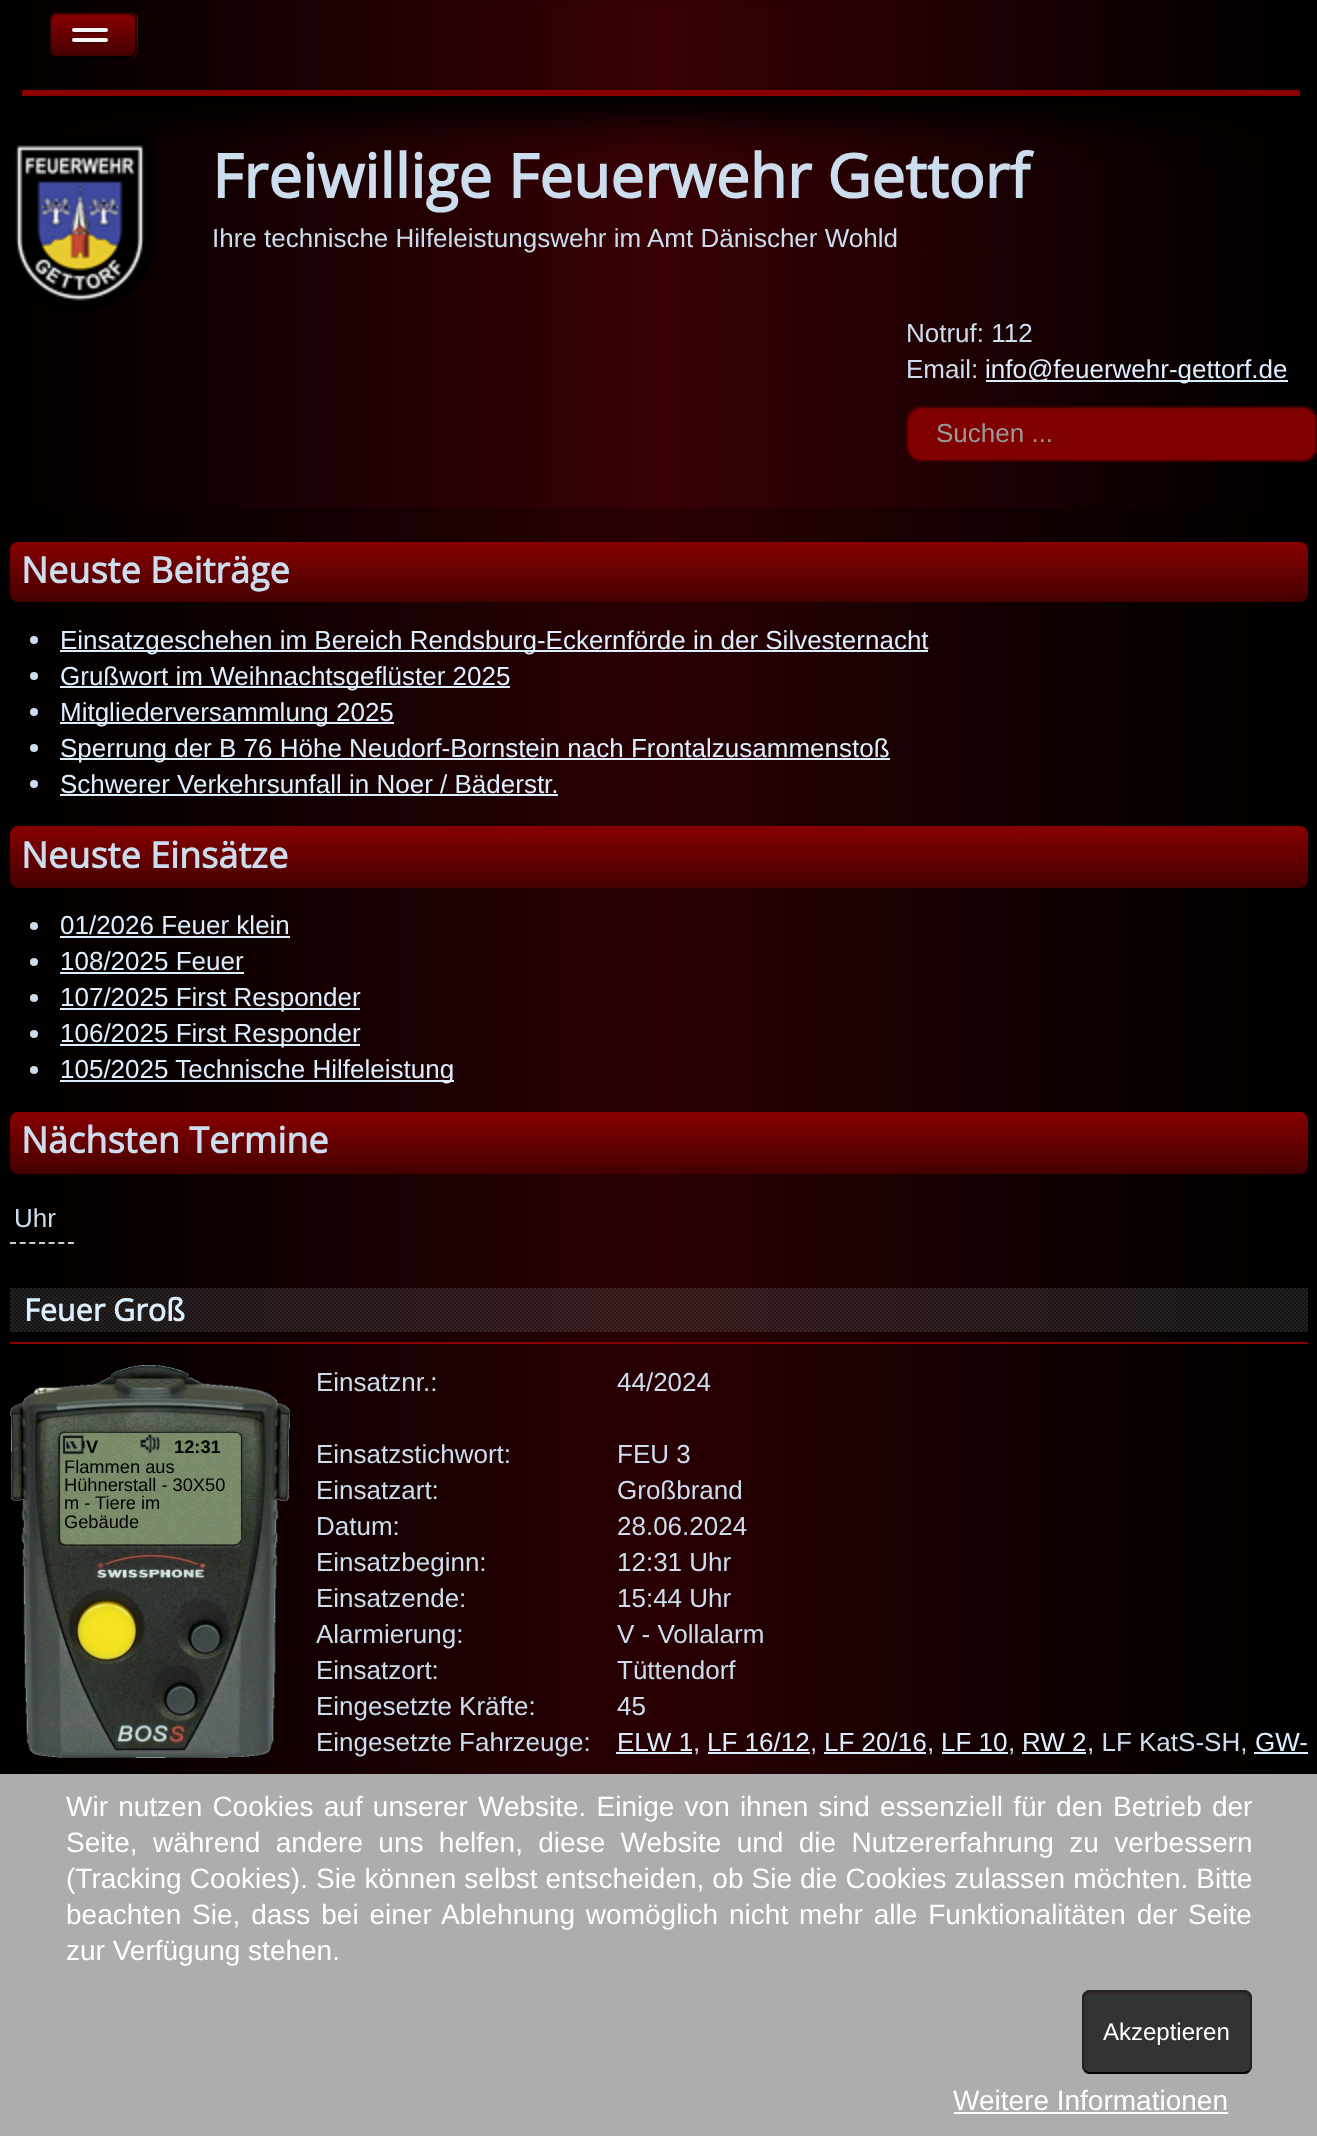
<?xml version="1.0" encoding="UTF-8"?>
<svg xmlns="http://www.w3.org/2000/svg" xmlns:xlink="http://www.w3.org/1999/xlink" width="1317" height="2136">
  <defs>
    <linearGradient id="g1" gradientUnits="userSpaceOnUse" x1="0" y1="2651" x2="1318" y2="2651"><stop offset="0" stop-color="#000000" /><stop offset="0.5" stop-color="#380005" /><stop offset="0.99" stop-color="#000000" /></linearGradient>
    <linearGradient id="g2" gradientUnits="userSpaceOnUse" x1="1" y1="45" x2="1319" y2="45"><stop offset="0" stop-color="#000000" /><stop offset="0.5" stop-color="#380005" /><stop offset="0.99" stop-color="#000000" /></linearGradient>
    <linearGradient id="g3" gradientUnits="userSpaceOnUse" x1="1" y1="45" x2="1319" y2="45"><stop offset="0" stop-color="#000000" /><stop offset="0.5" stop-color="#340005" /><stop offset="0.99" stop-color="#000000" /></linearGradient>
    <clipPath id="clip1"><rect x="50" y="12" width="88" height="46" rx="8" /></clipPath>
    <linearGradient id="g4" gradientUnits="userSpaceOnUse" x1="93" y1="14" x2="93" y2="56"><stop offset="0" stop-color="#880000" /><stop offset="1" stop-color="#440000" /></linearGradient>
    <linearGradient id="g5" gradientUnits="userSpaceOnUse" x1="659" y1="542" x2="659" y2="602"><stop offset="0" stop-color="#880000" /><stop offset="1" stop-color="#440000" /></linearGradient>
    <linearGradient id="g6" gradientUnits="userSpaceOnUse" x1="659" y1="826" x2="659" y2="888"><stop offset="0" stop-color="#880000" /><stop offset="1" stop-color="#440000" /></linearGradient>
    <linearGradient id="g7" gradientUnits="userSpaceOnUse" x1="659" y1="1112" x2="659" y2="1174"><stop offset="0" stop-color="#880000" /><stop offset="1" stop-color="#440000" /></linearGradient>
  </defs>
  <rect width="100%" height="100%" fill="#ffffff" />
  <rect width="1317" height="1774" fill="url(#g1)" />
  <image x="15" y="134" width="141" height="177" xlink:href="image1.png" />
  <rect x="-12" y="-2" width="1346" height="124" rx="54" fill="#000000" filter="blur(18px)" />
  <rect x="2" width="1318" height="96" rx="40" fill="url(#g2)" />
  <rect x="336" y="88" width="630" height="2" fill="url(#g3)" />
  <rect x="22" y="90" width="1278" height="6" fill="#880000" />
  <rect x="442" width="431" height="2" fill="#000000" fill-opacity="0.07" />
  <rect x="50" y="12" width="88" height="46" rx="8" fill="#800000" />
  <g clip-path="url(#clip1)">
    <rect x="51" y="14" width="87" height="42" fill="url(#g4)" />
  </g>
  <path d="M 57 16 h 60 c 4 0 16 -3 18 5 v 33 c 0 -1 1 -3 1 -4 v -30 c 0 -3 -3 -6 -6 -6 h -72 c -3 0 -5 2 -6 5 c 1 -2 3 -3 5 -3 z" fill="#280000" fill-opacity="0.2" />
  <path d="M 134 55 c -1.5 1.5 -3 2 -5 2 h -72 c -2 0 -3.5 -0.5 -5 -2" fill="none" stroke="#000000" stroke-width="2" />
  <path d="M 52 55 c -1.5 -1.5 -2 -3 -2 -5 v -30 c 0 -2 0.5 -3.5 2 -5 c 1.5 -1.5 3 -2 5 -2 h 72 c 2 0 3.5 0.5 5 2 c 1.5 1.5 2 3 2 5 v 30 c 0 2 -0.5 3.5 -2 5" fill="none" stroke="#220000" stroke-width="2" />
  <path d="M 72 31.5 c -0.5 4 6.5 2.5 7.5 2.5 h 27 c 1.5 -0.5 2 -3 0.5 -3.5 c 0 0.5 -1 1.5 -2 1.5 h -32 z" fill="#000000" fill-opacity="0.25" />
  <rect x="72" y="28" width="36" height="4" rx="2" fill="#f5f5f5" />
  <path d="M 72 41.5 c -0.5 4 6.5 2.5 7.5 2.5 h 27 c 1.5 -0.5 2 -3 0.5 -3.5 c 0 0.5 -1 1.5 -2 1.5 h -32 z" fill="#000000" fill-opacity="0.25" />
  <rect x="72" y="38" width="36" height="4" rx="2" fill="#f5f5f5" />
  <rect x="986" y="380" width="302" height="2" fill="#ddeeff" />
  <rect x="906" y="406" width="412" height="56" rx="16" fill="#800000" />
  <path d="M 922 410 h 380 c 8 0 14 6 14 14 v -2 c 0 -8 -6 -14 -14 -14 h -380 c -8 0 -14 6 -14 14 v 2 c 0 -8 6 -14 14 -14 z" fill="#760000" />
  <rect x="907" y="407" width="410" height="54" rx="15" fill="none" stroke="#400000" stroke-width="2" />
  <rect y="508" width="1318" height="750" rx="20" fill="#000000" fill-opacity="0.25" />
  <rect x="10" y="542" width="1298" height="60" rx="8" fill="url(#g5)" />
  <circle cx="34" cy="640" r="4" fill="#ccddee" />
  <rect x="60" y="650" width="868" height="2" fill="#ddeeff" />
  <circle cx="34" cy="676" r="4" fill="#ccddee" />
  <rect x="60" y="686" width="450" height="2" fill="#ddeeff" />
  <circle cx="34" cy="712" r="4" fill="#ccddee" />
  <rect x="60" y="722" width="334" height="2" fill="#ddeeff" />
  <circle cx="34" cy="748" r="4" fill="#ccddee" />
  <rect x="60" y="758" width="830" height="2" fill="#ddeeff" />
  <circle cx="34" cy="784" r="4" fill="#ccddee" />
  <rect x="60" y="794" width="498" height="2" fill="#ddeeff" />
  <rect x="10" y="826" width="1298" height="62" rx="8" fill="url(#g6)" />
  <circle cx="34" cy="926" r="4" fill="#ccddee" />
  <rect x="60" y="936" width="230" height="2" fill="#ddeeff" />
  <circle cx="34" cy="962" r="4" fill="#ccddee" />
  <rect x="60" y="972" width="184" height="2" fill="#ddeeff" />
  <circle cx="34" cy="998" r="4" fill="#ccddee" />
  <rect x="60" y="1008" width="300" height="2" fill="#ddeeff" />
  <circle cx="34" cy="1034" r="4" fill="#ccddee" />
  <rect x="60" y="1044" width="300" height="2" fill="#ddeeff" />
  <circle cx="34" cy="1070" r="4" fill="#ccddee" />
  <rect x="60" y="1080" width="394" height="2" fill="#ddeeff" />
  <rect x="10" y="1112" width="1298" height="62" rx="8" fill="url(#g7)" />
  <path d="M 10 1243 h 64" fill="none" stroke="#cccccc" stroke-width="2" stroke-dasharray="6 3.66" />
  <rect y="1258" width="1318" height="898" rx="20" fill="#000000" fill-opacity="0.25" />
  <rect x="10" y="1342" width="1298" height="2" fill="#880000" />
  <image x="10" y="1288" width="1298" height="44" xlink:href="image2.png" />
  <image x="10" y="1365" width="280" height="393" xlink:href="image3.png" />
  <rect x="616" y="1752" width="76" height="2" fill="#ddeeff" />
  <rect x="708" y="1752" width="102" height="2" fill="#ddeeff" />
  <rect x="824" y="1752" width="102" height="2" fill="#ddeeff" />
  <rect x="942" y="1752" width="66" height="2" fill="#ddeeff" />
  <rect x="1022" y="1752" width="64" height="2" fill="#ddeeff" />
  <rect x="1254" y="1752" width="54" height="2" fill="#ddeeff" />
  <rect y="1774" width="1317" height="362" fill="#adadad" />
  <rect x="1082" y="1990" width="170" height="84" rx="8" fill="#333333" />
  <path d="M 1090 1994 h 154 c 3 0 6 3 6 6 v -2 c 0 -3 -3 -6 -6 -6 h -154 c -3 0 -6 3 -6 6 v 2 c 0 -3 3 -6 6 -6 z" fill="#312929" />
  <path d="M 1249 2071 c -1.5 1.5 -3 2 -5 2 h -154 c -2 0 -3.5 -0.5 -5 -2" fill="none" stroke="#000000" stroke-width="2" />
  <path d="M 1085 2071 c -1.5 -1.5 -2 -3 -2 -5 v -68 c 0 -2 0.5 -3.5 2 -5 c 1.5 -1.5 3 -2 5 -2 h 154 c 2 0 3.5 0.5 5 2 c 1.5 1.5 2 3 2 5 v 68 c 0 2 -0.5 3.5 -2 5" fill="none" stroke="#222222" stroke-width="2" />
  <rect x="954" y="2112" width="274" height="2" fill="#ffffff" />
  <text x="212" y="198" style="font-family: Open Sans; font-size: 60.5px; font-weight: bold; fill: #ccddee">Freiwillige Feuerwehr Gettorf</text>
  <text x="212" y="247" style="font-family: Liberation Sans; font-size: 26px; fill: #ccddee">Ihre technische Hilfeleistungswehr im Amt Dänischer Wohld</text>
  <text x="906" y="342" style="font-family: Liberation Sans; font-size: 26px; fill: #ccddee">Notruf: 112</text>
  <text x="906" y="378" style="font-family: Liberation Sans; font-size: 26px; fill: #ccddee">Email:</text>
  <text x="985" y="378" style="font-family: Liberation Sans; font-size: 26px; fill: #ddeeff">info@feuerwehr-gettorf.de</text>
  <text x="936" y="442" style="font-family: Liberation Sans; font-size: 26px; fill: #999999">Suchen ...</text>
  <text x="21" y="583" style="font-family: Open Sans; font-size: 36px; font-weight: bold; fill: #ccddee">Neuste Beiträge</text>
  <text x="60" y="649" style="font-family: Liberation Sans; font-size: 26px; fill: #ddeeff">Einsatzgeschehen im Bereich Rendsburg-Eckernförde in der Silvesternacht</text>
  <text x="60" y="685" style="font-family: Liberation Sans; font-size: 26px; fill: #ddeeff">Grußwort im Weihnachtsgeflüster 2025</text>
  <text x="60" y="721" style="font-family: Liberation Sans; font-size: 26px; fill: #ddeeff">Mitgliederversammlung 2025</text>
  <text x="60" y="757" style="font-family: Liberation Sans; font-size: 26px; fill: #ddeeff">Sperrung der B 76 Höhe Neudorf-Bornstein nach Frontalzusammenstoß</text>
  <text x="60" y="793" style="font-family: Liberation Sans; font-size: 26px; fill: #ddeeff">Schwerer Verkehrsunfall in Noer / Bäderstr.</text>
  <text x="21" y="868" style="font-family: Open Sans; font-size: 36px; font-weight: bold; fill: #ccddee">Neuste Einsätze</text>
  <text x="60" y="934" style="font-family: Liberation Sans; font-size: 26px; fill: #ddeeff">01/2026 Feuer klein</text>
  <text x="60" y="970" style="font-family: Liberation Sans; font-size: 26px; fill: #ddeeff">108/2025 Feuer</text>
  <text x="60" y="1006" style="font-family: Liberation Sans; font-size: 26px; fill: #ddeeff">107/2025 First Responder</text>
  <text x="60" y="1042" style="font-family: Liberation Sans; font-size: 26px; fill: #ddeeff">106/2025 First Responder</text>
  <text x="60" y="1078" style="font-family: Liberation Sans; font-size: 26px; fill: #ddeeff">105/2025 Technische Hilfeleistung</text>
  <text x="21" y="1153" style="font-family: Open Sans; font-size: 36px; font-weight: bold; fill: #ccddee">Nächsten Termine</text>
  <text x="14" y="1227" style="font-family: Liberation Sans; font-size: 26px; fill: #ccddee">Uhr</text>
  <text x="24" y="1321" style="font-family: Open Sans; font-size: 30.5px; font-weight: bold; fill: #ddeeff">Feuer Groß</text>
  <text x="86" y="1453" style="font-family: Liberation Sans; font-size: 18.25px; font-weight: bold; fill: #000000">V</text>
  <text x="174" y="1453" style="font-family: Liberation Sans; font-size: 18.25px; font-weight: bold; fill: #000000">12:31</text>
  <text x="64" y="1473" style="font-family: Liberation Sans; font-size: 18.25px; fill: #000000">Flammen aus</text>
  <text x="64" y="1491" style="font-family: Liberation Sans; font-size: 18.25px; fill: #000000">Hühnerstall - 30X50</text>
  <text x="64" y="1509" style="font-family: Liberation Sans; font-size: 18.25px; fill: #000000">m - Tiere im</text>
  <text x="64" y="1528" style="font-family: Liberation Sans; font-size: 18.25px; fill: #000000">Gebäude</text>
  <text x="316" y="1391" style="font-family: Liberation Sans; font-size: 26px; fill: #ccddee">Einsatznr.:</text>
  <text x="617" y="1391" style="font-family: Liberation Sans; font-size: 26px; fill: #ccddee">44/2024</text>
  <text x="316" y="1463" style="font-family: Liberation Sans; font-size: 26px; fill: #ccddee">Einsatzstichwort:</text>
  <text x="617" y="1463" style="font-family: Liberation Sans; font-size: 26px; fill: #ccddee">FEU 3</text>
  <text x="316" y="1499" style="font-family: Liberation Sans; font-size: 26px; fill: #ccddee">Einsatzart:</text>
  <text x="617" y="1499" style="font-family: Liberation Sans; font-size: 26px; fill: #ccddee">Großbrand</text>
  <text x="316" y="1535" style="font-family: Liberation Sans; font-size: 26px; fill: #ccddee">Datum:</text>
  <text x="617" y="1535" style="font-family: Liberation Sans; font-size: 26px; fill: #ccddee">28.06.2024</text>
  <text x="316" y="1571" style="font-family: Liberation Sans; font-size: 26px; fill: #ccddee">Einsatzbeginn:</text>
  <text x="617" y="1571" style="font-family: Liberation Sans; font-size: 26px; fill: #ccddee">12:31 Uhr</text>
  <text x="316" y="1607" style="font-family: Liberation Sans; font-size: 26px; fill: #ccddee">Einsatzende:</text>
  <text x="617" y="1607" style="font-family: Liberation Sans; font-size: 26px; fill: #ccddee">15:44 Uhr</text>
  <text x="316" y="1643" style="font-family: Liberation Sans; font-size: 26px; fill: #ccddee">Alarmierung:</text>
  <text x="617" y="1643" style="font-family: Liberation Sans; font-size: 26px; fill: #ccddee">V - Vollalarm</text>
  <text x="316" y="1679" style="font-family: Liberation Sans; font-size: 26px; fill: #ccddee">Einsatzort:</text>
  <text x="617" y="1679" style="font-family: Liberation Sans; font-size: 26px; fill: #ccddee">Tüttendorf</text>
  <text x="316" y="1715" style="font-family: Liberation Sans; font-size: 26px; fill: #ccddee">Eingesetzte Kräfte:</text>
  <text x="617" y="1715" style="font-family: Liberation Sans; font-size: 26px; fill: #ccddee">45</text>
  <text x="316" y="1751" style="font-family: Liberation Sans; font-size: 26px; fill: #ccddee">Eingesetzte Fahrzeuge:</text>
  <text x="617" y="1751" style="font-family: Liberation Sans; font-size: 26px; fill: #ddeeff">ELW 1</text>
  <text x="693" y="1751" style="font-family: Liberation Sans; font-size: 26px; fill: #ccddee">,</text>
  <text x="707" y="1751" style="font-family: Liberation Sans; font-size: 26px; fill: #ddeeff">LF 16/12</text>
  <text x="810" y="1751" style="font-family: Liberation Sans; font-size: 26px; fill: #ccddee">,</text>
  <text x="824" y="1751" style="font-family: Liberation Sans; font-size: 26px; fill: #ddeeff">LF 20/16</text>
  <text x="927" y="1751" style="font-family: Liberation Sans; font-size: 26px; fill: #ccddee">,</text>
  <text x="941" y="1751" style="font-family: Liberation Sans; font-size: 26px; fill: #ddeeff">LF 10</text>
  <text x="1008" y="1751" style="font-family: Liberation Sans; font-size: 26px; fill: #ccddee">,</text>
  <text x="1022" y="1751" style="font-family: Liberation Sans; font-size: 26px; fill: #ddeeff">RW 2</text>
  <text x="1087" y="1751" style="font-family: Liberation Sans; font-size: 26px; fill: #ccddee">, LF KatS-SH,</text>
  <text x="1255" y="1751" style="font-family: Liberation Sans; font-size: 26px; fill: #ddeeff">GW-</text>
  <text x="66" y="1816" word-spacing="2.4" style="font-family: Liberation Sans; font-size: 28px; fill: #ffffff">Wir nutzen Cookies auf unserer Website. Einige von ihnen sind essenziell für den Betrieb der</text>
  <text x="66" y="1852" word-spacing="7.6" style="font-family: Liberation Sans; font-size: 28px; fill: #ffffff">Seite, während andere uns helfen, diese Website und die Nutzererfahrung zu verbessern</text>
  <text x="66" y="1888" word-spacing="0.25" style="font-family: Liberation Sans; font-size: 28px; fill: #ffffff">(Tracking Cookies). Sie können selbst entscheiden, ob Sie die Cookies zulassen möchten. Bitte</text>
  <text x="66" y="1924" word-spacing="3.1" style="font-family: Liberation Sans; font-size: 28px; fill: #ffffff">beachten Sie, dass bei einer Ablehnung womöglich nicht mehr alle Funktionalitäten der Seite</text>
  <text x="66" y="1960" style="font-family: Liberation Sans; font-size: 28px; fill: #ffffff">zur Verfügung stehen.</text>
  <text x="1103" y="2040" style="font-family: Liberation Sans; font-size: 24px; fill: #ffffff">Akzeptieren</text>
  <text x="953" y="2110" style="font-family: Liberation Sans; font-size: 28px; fill: #ffffff">Weitere Informationen</text>
</svg>
